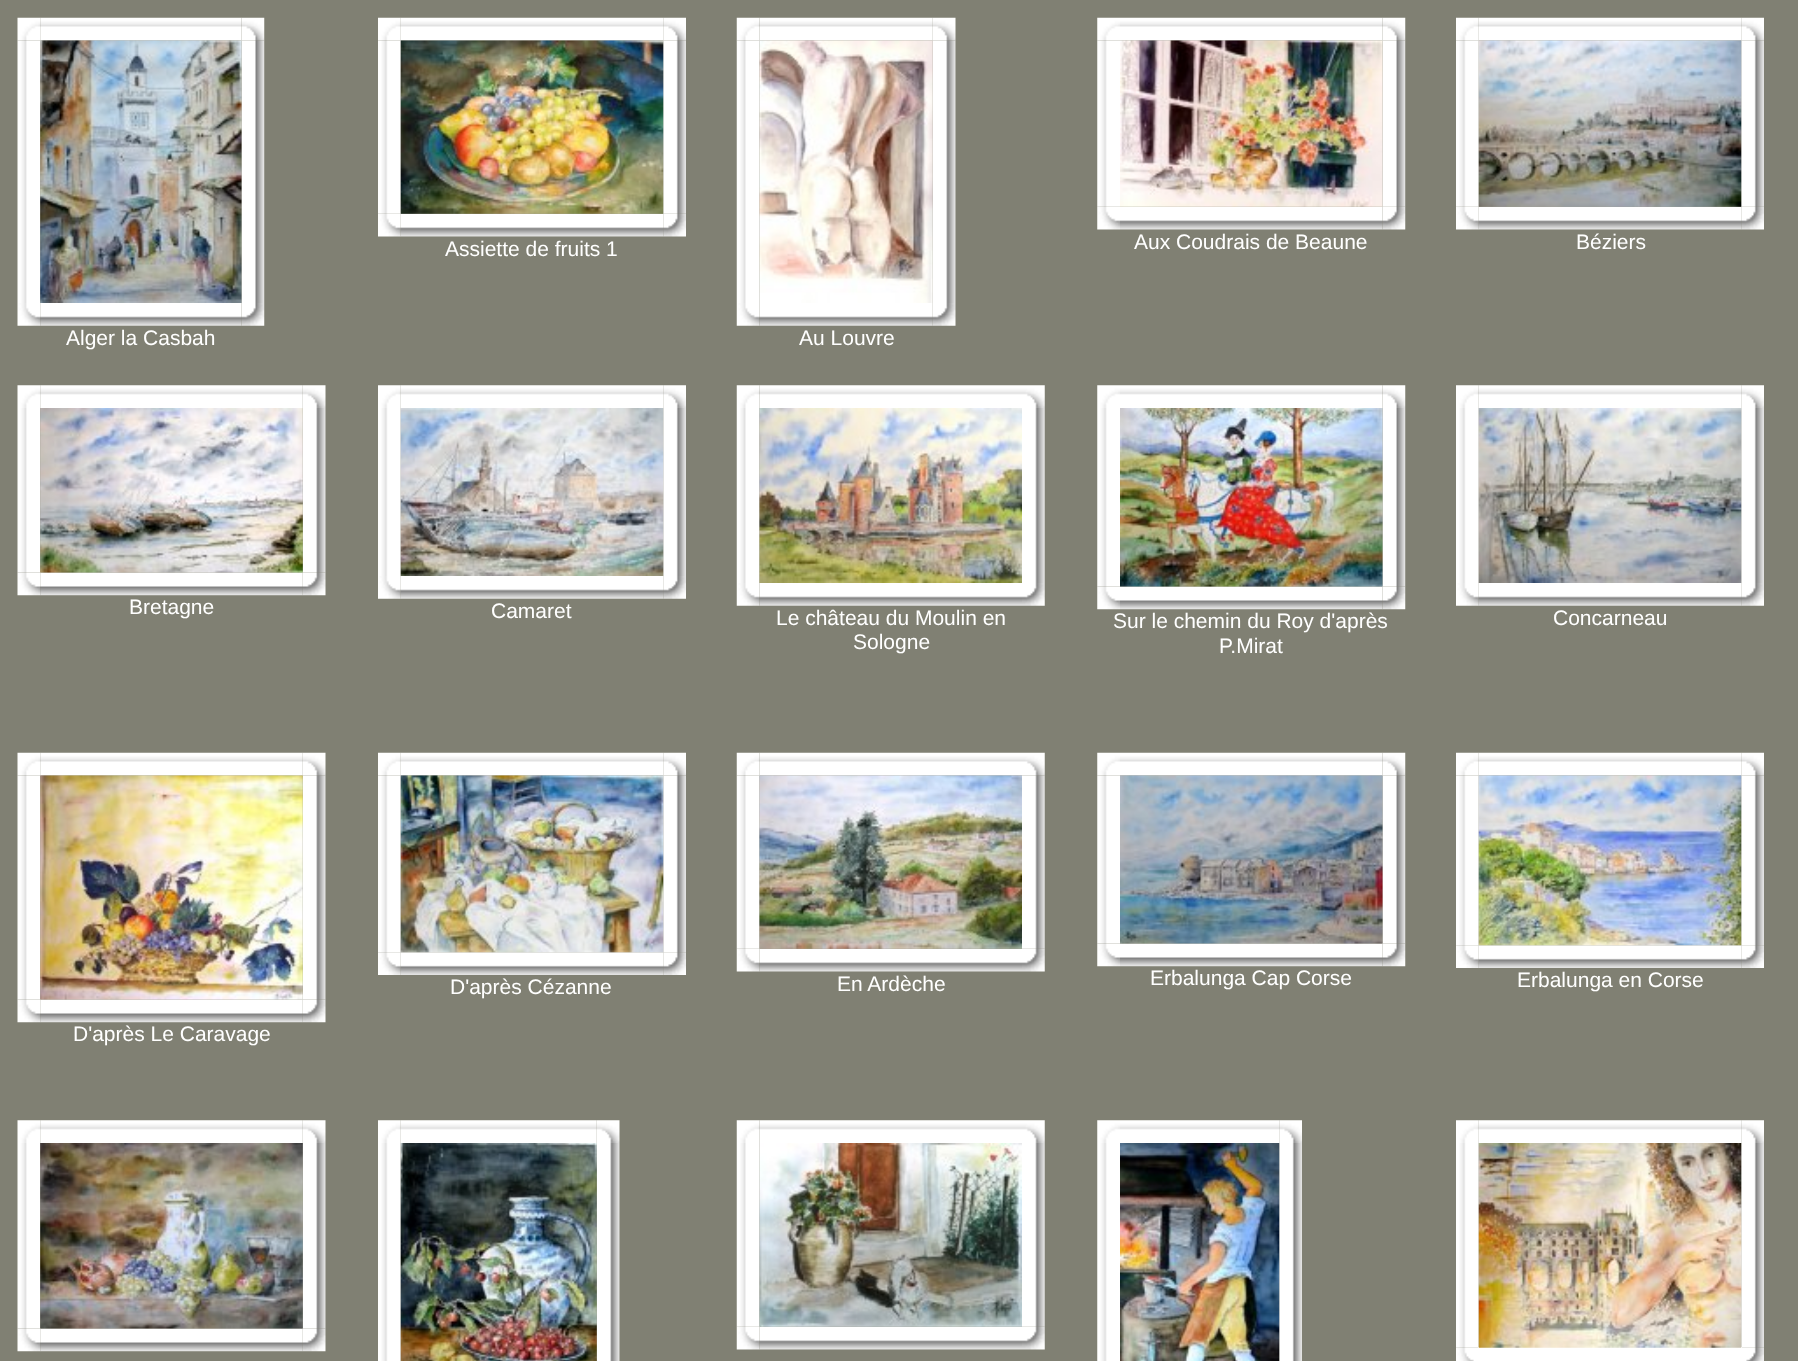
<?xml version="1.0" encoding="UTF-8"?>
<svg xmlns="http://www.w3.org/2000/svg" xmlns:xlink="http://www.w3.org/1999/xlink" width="1798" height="1361">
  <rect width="100%" height="100%" fill="#808073" />
  <image x="378" y="17" width="23" height="24" xlink:href="image1.png" />
  <image x="400" y="17" width="264" height="24" xlink:href="image2.png" />
  <image x="663" y="17" width="23" height="24" xlink:href="image3.png" />
  <image x="378" y="40" width="23" height="174" xlink:href="image4.png" />
  <image x="663" y="40" width="23" height="174" xlink:href="image6.png" />
  <image x="378" y="213" width="23" height="24" xlink:href="image7.png" />
  <image x="400" y="213" width="264" height="24" xlink:href="image8.png" />
  <image x="663" y="213" width="23" height="24" xlink:href="image9.png" />
  <image x="400" y="40" width="264" height="174" xlink:href="image5.png" />
  <image x="1097" y="17" width="23" height="24" xlink:href="image10.png" />
  <image x="1120" y="17" width="263" height="24" xlink:href="image11.png" />
  <image x="1382" y="17" width="24" height="24" xlink:href="image12.png" />
  <image x="1097" y="40" width="23" height="167" xlink:href="image13.png" />
  <image x="1382" y="40" width="24" height="167" xlink:href="image15.png" />
  <image x="1120" y="206" width="263" height="24" xlink:href="image17.png" />
  <image x="1382" y="206" width="24" height="24" xlink:href="image18.png" />
  <image x="1120" y="40" width="263" height="167" xlink:href="image14.png" />
  <image x="1097" y="206" width="23" height="24" xlink:href="image16.png" />
  <image x="1456" y="17" width="23" height="24" xlink:href="image1.png" />
  <image x="1478" y="17" width="264" height="24" xlink:href="image2.png" />
  <image x="1741" y="17" width="23" height="24" xlink:href="image3.png" />
  <image x="1456" y="40" width="23" height="167" xlink:href="image19.png" />
  <image x="1741" y="40" width="23" height="167" xlink:href="image21.png" />
  <image x="1456" y="206" width="23" height="24" xlink:href="image7.png" />
  <image x="1478" y="206" width="264" height="24" xlink:href="image8.png" />
  <image x="1741" y="206" width="23" height="24" xlink:href="image9.png" />
  <image x="1478" y="40" width="264" height="167" xlink:href="image20.png" />
  <image x="17" y="17" width="24" height="24" xlink:href="image22.png" />
  <image x="40" y="17" width="202" height="24" xlink:href="image23.png" />
  <image x="241" y="17" width="24" height="24" xlink:href="image24.png" />
  <image x="17" y="40" width="24" height="263" xlink:href="image25.png" />
  <image x="241" y="40" width="24" height="263" xlink:href="image27.png" />
  <image x="40" y="40" width="202" height="263" xlink:href="image26.png" />
  <image x="17" y="303" width="24" height="23" xlink:href="image28.png" />
  <image x="40" y="303" width="202" height="23" xlink:href="image29.png" />
  <image x="241" y="303" width="24" height="23" xlink:href="image30.png" />
  <image x="736" y="17" width="24" height="24" xlink:href="image31.png" />
  <image x="759" y="17" width="174" height="24" xlink:href="image32.png" />
  <image x="932" y="17" width="24" height="24" xlink:href="image33.png" />
  <image x="736" y="40" width="24" height="263" xlink:href="image34.png" />
  <image x="932" y="40" width="24" height="263" xlink:href="image36.png" />
  <image x="759" y="40" width="174" height="263" xlink:href="image35.png" />
  <image x="736" y="303" width="24" height="23" xlink:href="image37.png" />
  <image x="759" y="303" width="174" height="23" xlink:href="image38.png" />
  <image x="932" y="303" width="24" height="23" xlink:href="image39.png" />
  <image x="17" y="385" width="24" height="23" xlink:href="image40.png" />
  <image x="40" y="385" width="263" height="23" xlink:href="image41.png" />
  <image x="302" y="385" width="24" height="23" xlink:href="image42.png" />
  <image x="17" y="408" width="24" height="165" xlink:href="image43.png" />
  <image x="302" y="408" width="24" height="165" xlink:href="image45.png" />
  <image x="17" y="572" width="24" height="24" xlink:href="image46.png" />
  <image x="40" y="572" width="263" height="24" xlink:href="image47.png" />
  <image x="302" y="572" width="24" height="24" xlink:href="image48.png" />
  <image x="40" y="408" width="263" height="165" xlink:href="image44.png" />
  <image x="378" y="385" width="23" height="23" xlink:href="image49.png" />
  <image x="400" y="385" width="264" height="23" xlink:href="image50.png" />
  <image x="663" y="385" width="23" height="23" xlink:href="image51.png" />
  <image x="378" y="408" width="23" height="168" xlink:href="image52.png" />
  <image x="663" y="408" width="23" height="168" xlink:href="image54.png" />
  <image x="400" y="408" width="264" height="168" xlink:href="image53.png" />
  <image x="378" y="576" width="23" height="23" xlink:href="image55.png" />
  <image x="400" y="576" width="264" height="23" xlink:href="image56.png" />
  <image x="663" y="576" width="23" height="23" xlink:href="image57.png" />
  <image x="736" y="385" width="24" height="23" xlink:href="image58.png" />
  <image x="759" y="385" width="263" height="23" xlink:href="image59.png" />
  <image x="1022" y="385" width="23" height="23" xlink:href="image60.png" />
  <image x="736" y="408" width="24" height="175" xlink:href="image61.png" />
  <image x="759" y="408" width="263" height="175" xlink:href="image62.png" />
  <image x="1022" y="408" width="23" height="175" xlink:href="image63.png" />
  <image x="736" y="583" width="24" height="23" xlink:href="image37.png" />
  <image x="759" y="583" width="263" height="23" xlink:href="image64.png" />
  <image x="1022" y="583" width="23" height="23" xlink:href="image65.png" />
  <image x="1097" y="385" width="23" height="23" xlink:href="image66.png" />
  <image x="1120" y="385" width="263" height="23" xlink:href="image67.png" />
  <image x="1382" y="385" width="24" height="23" xlink:href="image68.png" />
  <image x="1097" y="408" width="23" height="179" xlink:href="image69.png" />
  <image x="1382" y="408" width="24" height="179" xlink:href="image71.png" />
  <image x="1120" y="586" width="263" height="24" xlink:href="image73.png" />
  <image x="1382" y="586" width="24" height="24" xlink:href="image74.png" />
  <image x="1120" y="408" width="263" height="179" xlink:href="image70.png" />
  <image x="1097" y="586" width="23" height="24" xlink:href="image72.png" />
  <image x="1456" y="385" width="23" height="23" xlink:href="image49.png" />
  <image x="1478" y="385" width="264" height="23" xlink:href="image50.png" />
  <image x="1741" y="385" width="23" height="23" xlink:href="image51.png" />
  <image x="1456" y="408" width="23" height="175" xlink:href="image75.png" />
  <image x="1741" y="408" width="23" height="175" xlink:href="image77.png" />
  <image x="1478" y="408" width="264" height="175" xlink:href="image76.png" />
  <image x="1456" y="583" width="23" height="23" xlink:href="image55.png" />
  <image x="1478" y="583" width="264" height="23" xlink:href="image56.png" />
  <image x="1741" y="583" width="23" height="23" xlink:href="image57.png" />
  <image x="378" y="752" width="23" height="24" xlink:href="image1.png" />
  <image x="400" y="752" width="264" height="24" xlink:href="image2.png" />
  <image x="663" y="752" width="23" height="24" xlink:href="image3.png" />
  <image x="378" y="775" width="23" height="178" xlink:href="image78.png" />
  <image x="663" y="775" width="23" height="178" xlink:href="image80.png" />
  <image x="378" y="952" width="23" height="23" xlink:href="image81.png" />
  <image x="400" y="952" width="264" height="23" xlink:href="image82.png" />
  <image x="663" y="952" width="23" height="23" xlink:href="image83.png" />
  <image x="400" y="775" width="264" height="178" xlink:href="image79.png" />
  <image x="736" y="752" width="24" height="24" xlink:href="image31.png" />
  <image x="759" y="752" width="263" height="24" xlink:href="image84.png" />
  <image x="1022" y="752" width="23" height="24" xlink:href="image85.png" />
  <image x="736" y="775" width="24" height="174" xlink:href="image86.png" />
  <image x="736" y="948" width="24" height="24" xlink:href="image89.png" />
  <image x="759" y="948" width="263" height="24" xlink:href="image90.png" />
  <image x="759" y="775" width="263" height="174" xlink:href="image87.png" />
  <image x="1022" y="775" width="23" height="174" xlink:href="image88.png" />
  <image x="1022" y="948" width="23" height="24" xlink:href="image91.png" />
  <image x="1097" y="752" width="23" height="24" xlink:href="image10.png" />
  <image x="1120" y="752" width="263" height="24" xlink:href="image11.png" />
  <image x="1382" y="752" width="24" height="24" xlink:href="image12.png" />
  <image x="1097" y="775" width="23" height="169" xlink:href="image92.png" />
  <image x="1382" y="775" width="24" height="169" xlink:href="image94.png" />
  <image x="1120" y="943" width="263" height="24" xlink:href="image73.png" />
  <image x="1382" y="943" width="24" height="24" xlink:href="image74.png" />
  <image x="1120" y="775" width="263" height="169" xlink:href="image93.png" />
  <image x="1097" y="943" width="23" height="24" xlink:href="image72.png" />
  <image x="1456" y="752" width="23" height="24" xlink:href="image1.png" />
  <image x="1478" y="752" width="264" height="24" xlink:href="image2.png" />
  <image x="1741" y="752" width="23" height="24" xlink:href="image3.png" />
  <image x="1456" y="775" width="23" height="171" xlink:href="image95.png" />
  <image x="1741" y="775" width="23" height="171" xlink:href="image97.png" />
  <image x="1456" y="945" width="23" height="23" xlink:href="image81.png" />
  <image x="1478" y="945" width="264" height="23" xlink:href="image82.png" />
  <image x="1741" y="945" width="23" height="23" xlink:href="image83.png" />
  <image x="1478" y="775" width="264" height="171" xlink:href="image96.png" />
  <image x="17" y="752" width="24" height="24" xlink:href="image22.png" />
  <image x="40" y="752" width="263" height="24" xlink:href="image98.png" />
  <image x="302" y="752" width="24" height="24" xlink:href="image33.png" />
  <image x="17" y="775" width="24" height="225" xlink:href="image99.png" />
  <image x="302" y="775" width="24" height="225" xlink:href="image101.png" />
  <image x="17" y="999" width="24" height="24" xlink:href="image46.png" />
  <image x="40" y="999" width="263" height="24" xlink:href="image47.png" />
  <image x="302" y="999" width="24" height="24" xlink:href="image48.png" />
  <image x="40" y="775" width="263" height="225" xlink:href="image100.png" />
  <image x="17" y="1120" width="24" height="23" xlink:href="image40.png" />
  <image x="40" y="1120" width="263" height="23" xlink:href="image41.png" />
  <image x="302" y="1120" width="24" height="23" xlink:href="image42.png" />
  <image x="17" y="1143" width="24" height="186" xlink:href="image102.png" />
  <image x="302" y="1143" width="24" height="186" xlink:href="image104.png" />
  <image x="17" y="1328" width="24" height="24" xlink:href="image46.png" />
  <image x="40" y="1328" width="263" height="24" xlink:href="image47.png" />
  <image x="302" y="1328" width="24" height="24" xlink:href="image48.png" />
  <image x="40" y="1143" width="263" height="186" xlink:href="image103.png" />
  <image x="378" y="1120" width="23" height="23" xlink:href="image49.png" />
  <image x="400" y="1120" width="197" height="23" xlink:href="image105.png" />
  <image x="596" y="1120" width="24" height="23" xlink:href="image42.png" />
  <image x="378" y="1143" width="23" height="218" xlink:href="image106.png" />
  <image x="596" y="1143" width="24" height="218" xlink:href="image108.png" />
  <image x="400" y="1143" width="197" height="218" xlink:href="image107.png" />
  <image x="736" y="1120" width="24" height="23" xlink:href="image58.png" />
  <image x="759" y="1120" width="263" height="23" xlink:href="image59.png" />
  <image x="1022" y="1120" width="23" height="23" xlink:href="image60.png" />
  <image x="736" y="1143" width="24" height="184" xlink:href="image109.png" />
  <image x="736" y="1326" width="24" height="24" xlink:href="image89.png" />
  <image x="759" y="1326" width="263" height="24" xlink:href="image90.png" />
  <image x="759" y="1143" width="263" height="184" xlink:href="image110.png" />
  <image x="1022" y="1143" width="23" height="184" xlink:href="image111.png" />
  <image x="1022" y="1326" width="23" height="24" xlink:href="image91.png" />
  <image x="1097" y="1120" width="23" height="23" xlink:href="image66.png" />
  <image x="1120" y="1120" width="160" height="23" xlink:href="image112.png" />
  <image x="1279" y="1120" width="23" height="23" xlink:href="image51.png" />
  <image x="1097" y="1143" width="23" height="218" xlink:href="image113.png" />
  <image x="1279" y="1143" width="23" height="218" xlink:href="image115.png" />
  <image x="1120" y="1143" width="160" height="218" xlink:href="image114.png" />
  <image x="1456" y="1120" width="23" height="23" xlink:href="image49.png" />
  <image x="1478" y="1120" width="264" height="23" xlink:href="image50.png" />
  <image x="1741" y="1120" width="23" height="23" xlink:href="image51.png" />
  <image x="1456" y="1143" width="23" height="205" xlink:href="image116.png" />
  <image x="1741" y="1143" width="23" height="205" xlink:href="image118.png" />
  <rect x="1478" y="1347" width="264" height="14" fill="#ffffff" />
  <image x="1478" y="1143" width="264" height="205" xlink:href="image117.png" />
  <image x="1456" y="1347" width="22" height="14" xlink:href="image119.png" />
  <image x="1742" y="1347" width="22" height="14" xlink:href="image120.png" />
  <text x="445" y="256" style="font-family: Liberation Sans; font-size: 21px; fill: #ffffff">Assiette de fruits 1</text>
  <text x="1134" y="249" style="font-family: Liberation Sans; font-size: 21px; fill: #ffffff">Aux Coudrais de Beaune</text>
  <text x="1576" y="249" style="font-family: Liberation Sans; font-size: 21px; fill: #ffffff">Béziers</text>
  <text x="66" y="345" style="font-family: Liberation Sans; font-size: 21px; fill: #ffffff">Alger la Casbah</text>
  <text x="799" y="345" style="font-family: Liberation Sans; font-size: 21px; fill: #ffffff">Au Louvre</text>
  <text x="129" y="614" style="font-family: Liberation Sans; font-size: 21px; fill: #ffffff">Bretagne</text>
  <text x="491" y="618" style="font-family: Liberation Sans; font-size: 21px; fill: #ffffff">Camaret</text>
  <text x="776" y="625" style="font-family: Liberation Sans; font-size: 21px; fill: #ffffff">Le château du Moulin en</text>
  <text x="853" y="649" style="font-family: Liberation Sans; font-size: 21px; fill: #ffffff">Sologne</text>
  <text x="1113" y="628" style="font-family: Liberation Sans; font-size: 21px; fill: #ffffff">Sur le chemin du Roy d'après</text>
  <text x="1219" y="653" style="font-family: Liberation Sans; font-size: 21px; fill: #ffffff">P.Mirat</text>
  <text x="1553" y="625" style="font-family: Liberation Sans; font-size: 21px; fill: #ffffff">Concarneau</text>
  <text x="450" y="994" style="font-family: Liberation Sans; font-size: 21px; fill: #ffffff">D'après Cézanne</text>
  <text x="837" y="991" style="font-family: Liberation Sans; font-size: 21px; fill: #ffffff">En Ardèche</text>
  <text x="1150" y="985" style="font-family: Liberation Sans; font-size: 21px; fill: #ffffff">Erbalunga Cap Corse</text>
  <text x="1517" y="987" style="font-family: Liberation Sans; font-size: 21px; fill: #ffffff">Erbalunga en Corse</text>
  <text x="73" y="1041" style="font-family: Liberation Sans; font-size: 21px; fill: #ffffff">D'après Le Caravage</text>
</svg>
